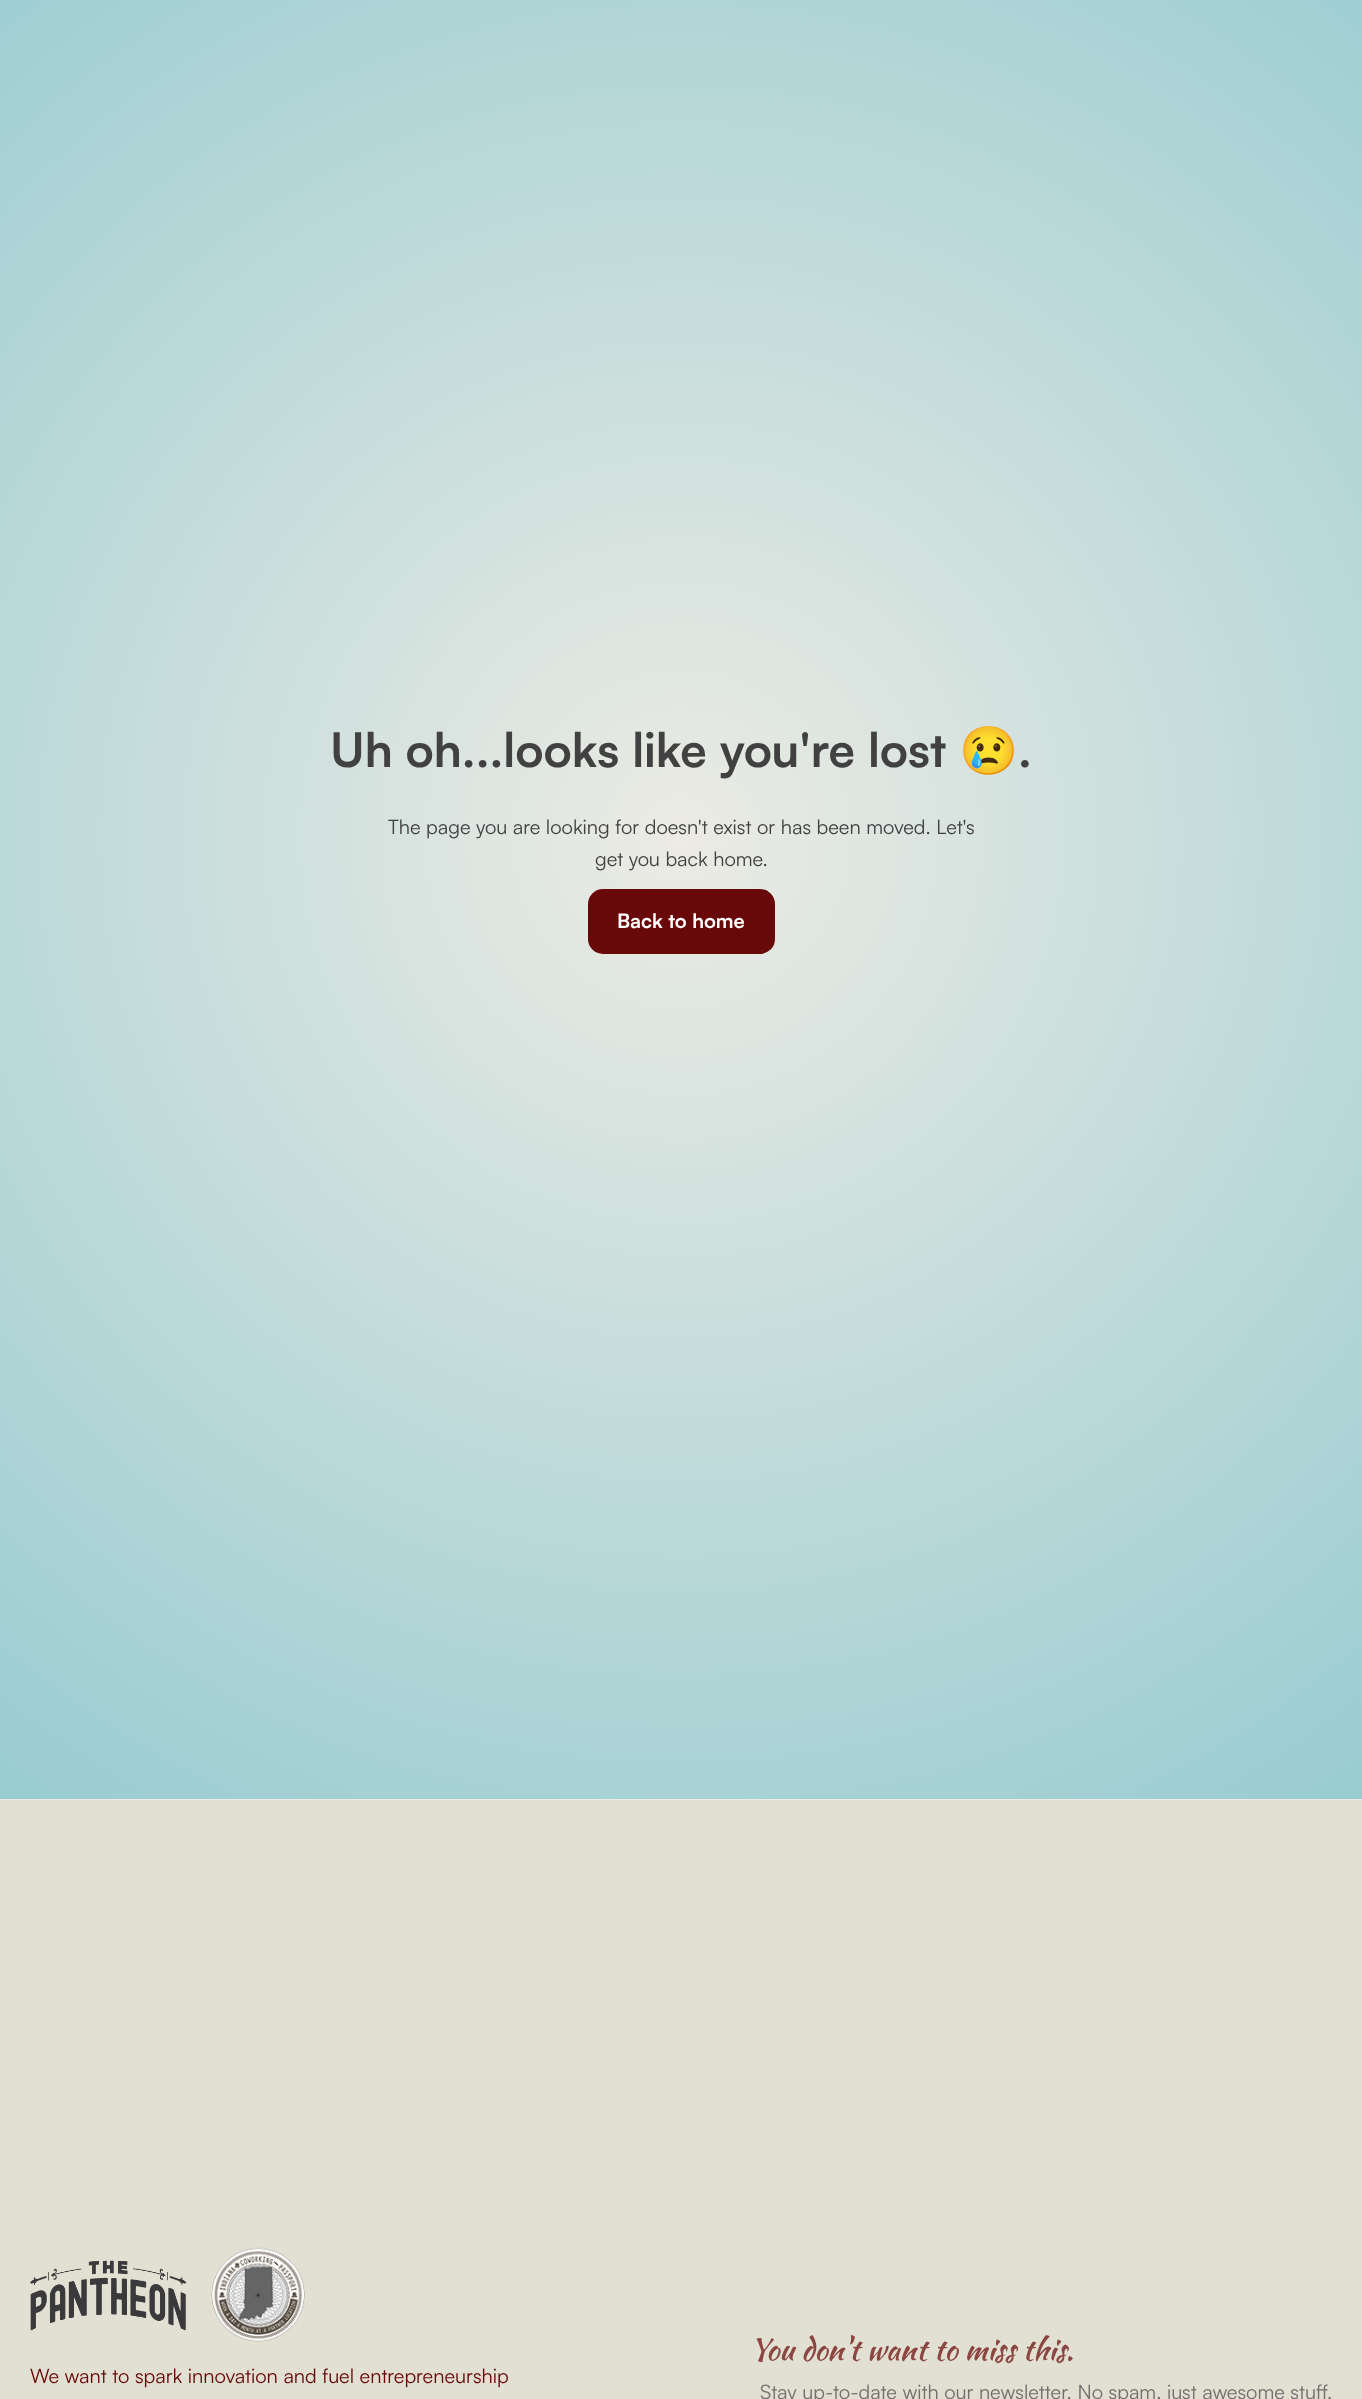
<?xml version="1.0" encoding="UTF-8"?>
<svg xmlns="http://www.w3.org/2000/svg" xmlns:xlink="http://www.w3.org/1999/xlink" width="1362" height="2399">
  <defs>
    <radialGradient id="g1" gradientUnits="userSpaceOnUse" cx="681" cy="839" r="1177"><stop offset="0" stop-color="#ecebe4" /><stop offset="1" stop-color="#98ccd1" /></radialGradient>
  </defs>
  <rect width="100%" height="100%" fill="#ffffff" />
  <rect width="1362" height="1799" fill="url(#g1)" />
  <rect x="588" y="889" width="187" height="65" rx="15" fill="#680808" />
  <rect y="1800" width="1362" height="599" fill="#e2e0d2" />
  <rect y="1799" width="1362" height="1" fill="#ecebe4" />
  <image x="30" y="2260" width="157" height="71" xlink:href="image1.png" />
  <image x="211" y="2247" width="94" height="95" xlink:href="image2.png" />
  <text x="330" y="767" style="font-family: Satoshi; font-size: 47.5px; font-weight: bold; fill: #414141">Uh oh...looks like you're lost</text>
  <text x="959" y="767" style="font-family: Noto Color Emoji; font-size: 47.5px; font-weight: bold; fill: #414141">😢</text>
  <text x="1018" y="767" style="font-family: Satoshi; font-size: 47.5px; font-weight: bold; fill: #414141">.</text>
  <text x="388" y="834" style="font-family: Satoshi; font-size: 20px; fill: #414141">The page you are looking for doesn't exist or has been moved. Let's</text>
  <text x="595" y="866" style="font-family: Satoshi; font-size: 20px; fill: #414141">get you back home.</text>
  <text x="617" y="928" style="font-family: Satoshi; font-size: 20px; font-weight: bold; fill: #ffffff">Back to home</text>
  <text x="30" y="2383" style="font-family: Satoshi; font-size: 20px; fill: #680808">We want to spark innovation and fuel entrepreneurship</text>
  <text x="750" y="2360" style="font-family: Kaushan Script; font-size: 30px; fill: #8b4642">You don't want to miss this.</text>
  <text x="760" y="2399" style="font-family: Satoshi; font-size: 20px; fill: #706f6b">Stay up-to-date with our newsletter. No spam, just awesome stuff.</text>
</svg>
